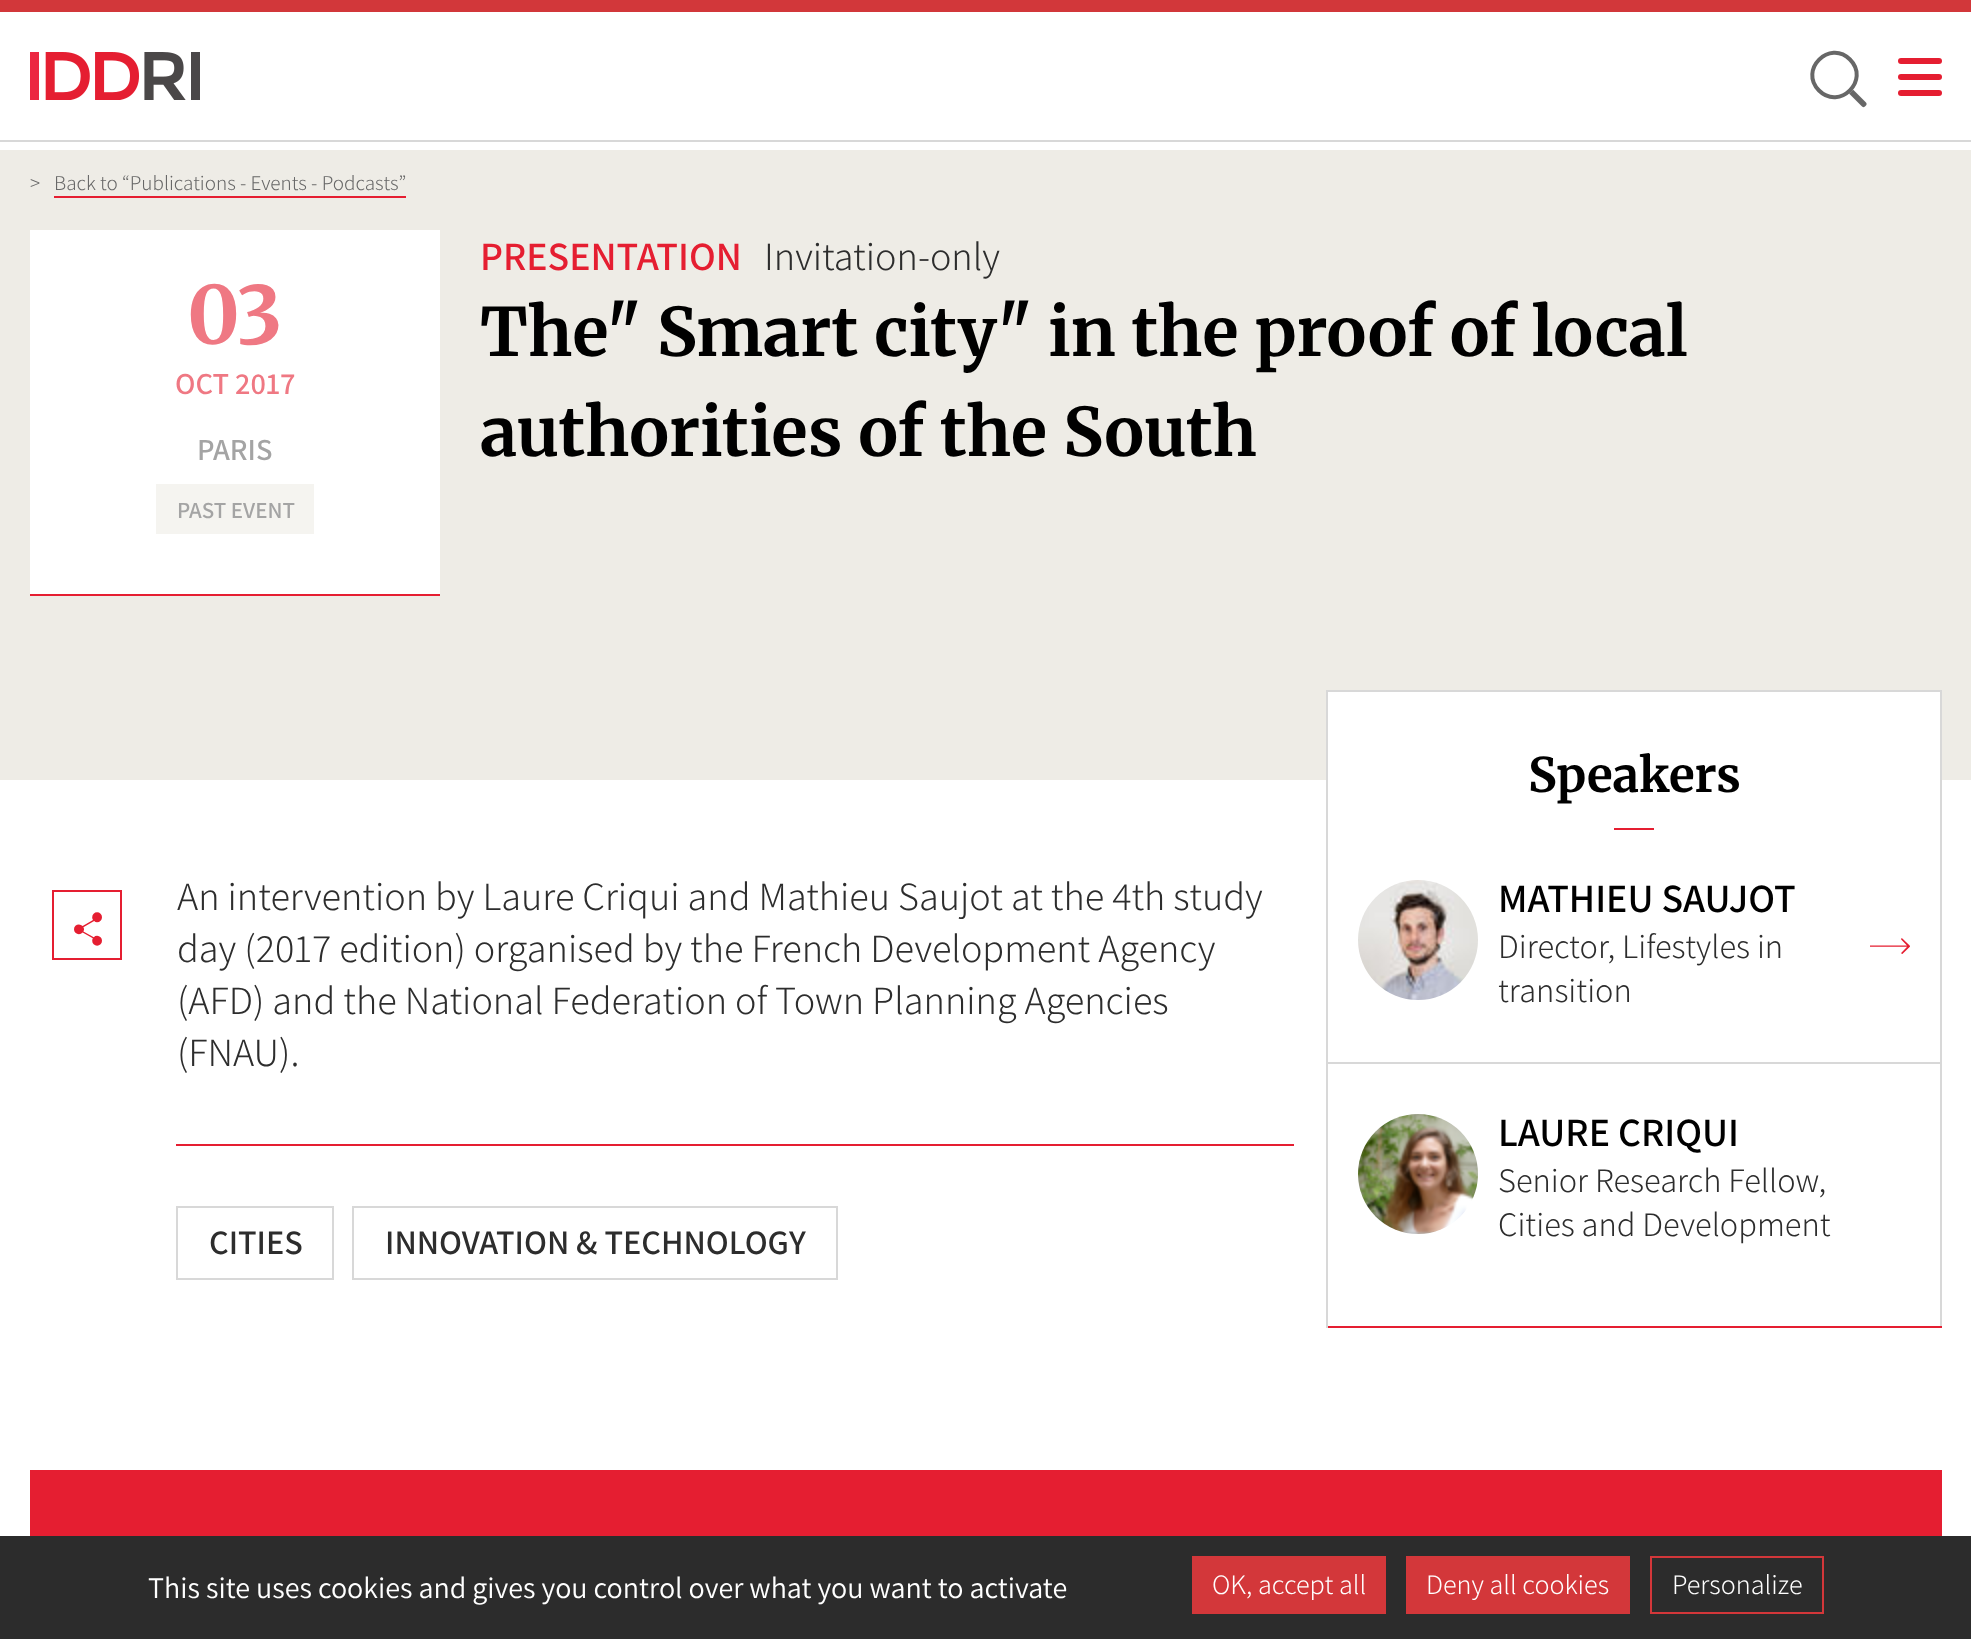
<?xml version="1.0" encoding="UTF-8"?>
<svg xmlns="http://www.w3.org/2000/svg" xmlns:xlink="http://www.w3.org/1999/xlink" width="1971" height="1639">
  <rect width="100%" height="100%" fill="#ffffff" />
  <rect width="1971" height="12" fill="#d2373a" />
  <rect y="140" width="1971" height="2" fill="#d8d8d8" />
  <image x="30" y="52" width="170" height="48" xlink:href="image1.png" />
  <path d="M 1829 73.5 l 32.5 32.5 c 1 1.5 3 1.5 4 0 c 1.5 -1 1.5 -3 0 -4 l -32.5 -32.5 c -1 -1.5 -3 -1.5 -4 0 c -1 1 -1 3 0 4 z" fill="#676767" />
  <path d="M 1818 92 c 22 22 56 -12 34 -34 c -23 -22 -57 12 -34 34 z" fill="#ffffff" />
  <path d="M 1819 90.5 c 20.5 20.5 51.5 -10.5 31 -31 c -20.5 -20.5 -51.5 10.5 -31 31 z" fill="none" stroke="#676767" stroke-width="4" />
  <rect x="1898" y="74" width="44" height="6" rx="3" fill="#e51e31" />
  <rect x="1898" y="58" width="44" height="6" rx="3" fill="#e51e31" />
  <rect x="1898" y="90" width="44" height="6" rx="3" fill="#e51e31" />
  <rect y="150" width="1971" height="630" fill="#eeece6" />
  <rect x="54" y="196" width="352" height="2" fill="#e51e31" />
  <rect x="30" y="230" width="410" height="364" fill="#ffffff" />
  <rect x="30" y="594" width="410" height="2" fill="#e51e31" />
  <rect x="156" y="484" width="158" height="50" fill="#f5f4f0" />
  <rect x="53" y="891" width="68" height="68" fill="none" stroke="#e51e31" stroke-width="2" />
  <image x="74" y="912" width="28" height="34" xlink:href="image2.png" />
  <rect x="176" y="1144" width="1118" height="2" fill="#e51e31" />
  <rect x="177" y="1207" width="156" height="72" fill="none" stroke="#d8d8d8" stroke-width="2" />
  <rect x="353" y="1207" width="484" height="72" fill="none" stroke="#d8d8d8" stroke-width="2" />
  <rect x="1328" y="692" width="612" height="88" fill="#ffffff" />
  <rect x="1326" y="690" width="616" height="2" fill="#d8d8d8" />
  <rect x="1940" y="690" width="2" height="638" fill="#d8d8d8" />
  <rect x="1326" y="1326" width="616" height="2" fill="#e51e31" />
  <rect x="1326" y="690" width="2" height="638" fill="#d8d8d8" />
  <rect x="1614" y="828" width="40" height="2" fill="#e51e31" />
  <rect x="1328" y="1062" width="612" height="2" fill="#d8d8d8" />
  <image x="1358" y="880" width="120" height="120" xlink:href="image3.png" />
  <image x="1870" y="938" width="40" height="16" xlink:href="image4.png" />
  <image x="1358" y="1114" width="120" height="120" xlink:href="image5.png" />
  <rect x="30" y="1470" width="1912" height="66" fill="#e51e31" />
  <rect y="1536" width="1971" height="103" fill="#2c2c2c" />
  <rect x="1192" y="1556" width="194" height="58" fill="#d3373a" />
  <rect x="1406" y="1556" width="224" height="58" fill="#d3373a" />
  <rect x="1651" y="1557" width="172" height="56" fill="none" stroke="#d3373a" stroke-width="2" />
  <text x="30" y="190" style="font-family: Assistant; font-size: 21px; font-weight: 300; fill: #676767">&gt;</text>
  <text x="54" y="190" style="font-family: Assistant; font-size: 21px; font-weight: 300; fill: #676767">Back to “Publications - Events - Podcasts”</text>
  <text x="187" y="344" style="font-family: Merriweather; font-size: 80px; font-weight: 300; fill: #ef7883">03</text>
  <text x="175" y="394" style="font-family: Assistant; font-size: 30.5px; font-weight: 600; fill: #ef7883">OCT 2017</text>
  <text x="197" y="460" style="font-family: Assistant; font-size: 30.5px; font-weight: 600; fill: #a4a4a4">PARIS</text>
  <text x="177" y="518" style="font-family: Assistant; font-size: 23px; font-weight: 600; fill: #a4a4a4">PAST EVENT</text>
  <text x="480" y="270" style="font-family: Assistant; font-size: 40px; font-weight: 600; fill: #e51e31">PRESENTATION</text>
  <text x="764" y="270" style="font-family: Assistant; font-size: 40px; font-weight: 300; fill: #2d2d2d">Invitation-only</text>
  <text x="480" y="356" style="font-family: Merriweather; font-size: 66.7px; font-weight: 300; fill: #000000">The" Smart city" in the proof of local</text>
  <text x="480" y="456" style="font-family: Merriweather; font-size: 66.7px; font-weight: 300; fill: #000000">authorities of the South</text>
  <text x="177" y="910" style="font-family: Assistant; font-size: 40px; font-weight: 300; fill: #2d2d2d">An intervention by Laure Criqui and Mathieu Saujot at the 4th study</text>
  <text x="177" y="962" style="font-family: Assistant; font-size: 40px; font-weight: 300; fill: #2d2d2d">day (2017 edition) organised by the French Development Agency</text>
  <text x="177" y="1014" style="font-family: Assistant; font-size: 40px; font-weight: 300; fill: #2d2d2d">(AFD) and the National Federation of Town Planning Agencies</text>
  <text x="177" y="1066" style="font-family: Assistant; font-size: 40px; font-weight: 300; fill: #2d2d2d">(FNAU).</text>
  <text x="209" y="1254" style="font-family: Assistant; font-size: 34.25px; font-weight: 600; fill: #2d2d2d">CITIES</text>
  <text x="385" y="1254" style="font-family: Assistant; font-size: 34.25px; font-weight: 600; fill: #2d2d2d">INNOVATION &amp; TECHNOLOGY</text>
  <text x="1528" y="792" style="font-family: Merriweather; font-size: 47.5px; font-weight: 300; fill: #000000">Speakers</text>
  <text x="1498" y="912" style="font-family: Assistant; font-size: 40px; font-weight: 600; fill: #000000">MATHIEU SAUJOT</text>
  <text x="1498" y="958" style="font-family: Assistant; font-size: 34.25px; font-weight: 300; fill: #2d2d2d">Director, Lifestyles in</text>
  <text x="1498" y="1002" style="font-family: Assistant; font-size: 34.25px; font-weight: 300; fill: #2d2d2d">transition</text>
  <text x="1498" y="1146" style="font-family: Assistant; font-size: 40px; font-weight: 600; fill: #000000">LAURE CRIQUI</text>
  <text x="1498" y="1192" style="font-family: Assistant; font-size: 34.25px; font-weight: 300; fill: #2d2d2d">Senior Research Fellow,</text>
  <text x="1498" y="1236" style="font-family: Assistant; font-size: 34.25px; font-weight: 300; fill: #2d2d2d">Cities and Development</text>
  <text x="148" y="1598" style="font-family: Assistant; font-size: 30px; fill: #ffffff">This site uses cookies and gives you control over what you want to activate</text>
  <text x="1212" y="1594" style="font-family: Assistant; font-size: 28px; font-weight: 300; fill: #ffffff">OK, accept all</text>
  <text x="1426" y="1594" style="font-family: Assistant; font-size: 28px; font-weight: 300; fill: #ffffff">Deny all cookies</text>
  <text x="1672" y="1594" style="font-family: Assistant; font-size: 28px; font-weight: 300; fill: #ffffff">Personalize</text>
</svg>
